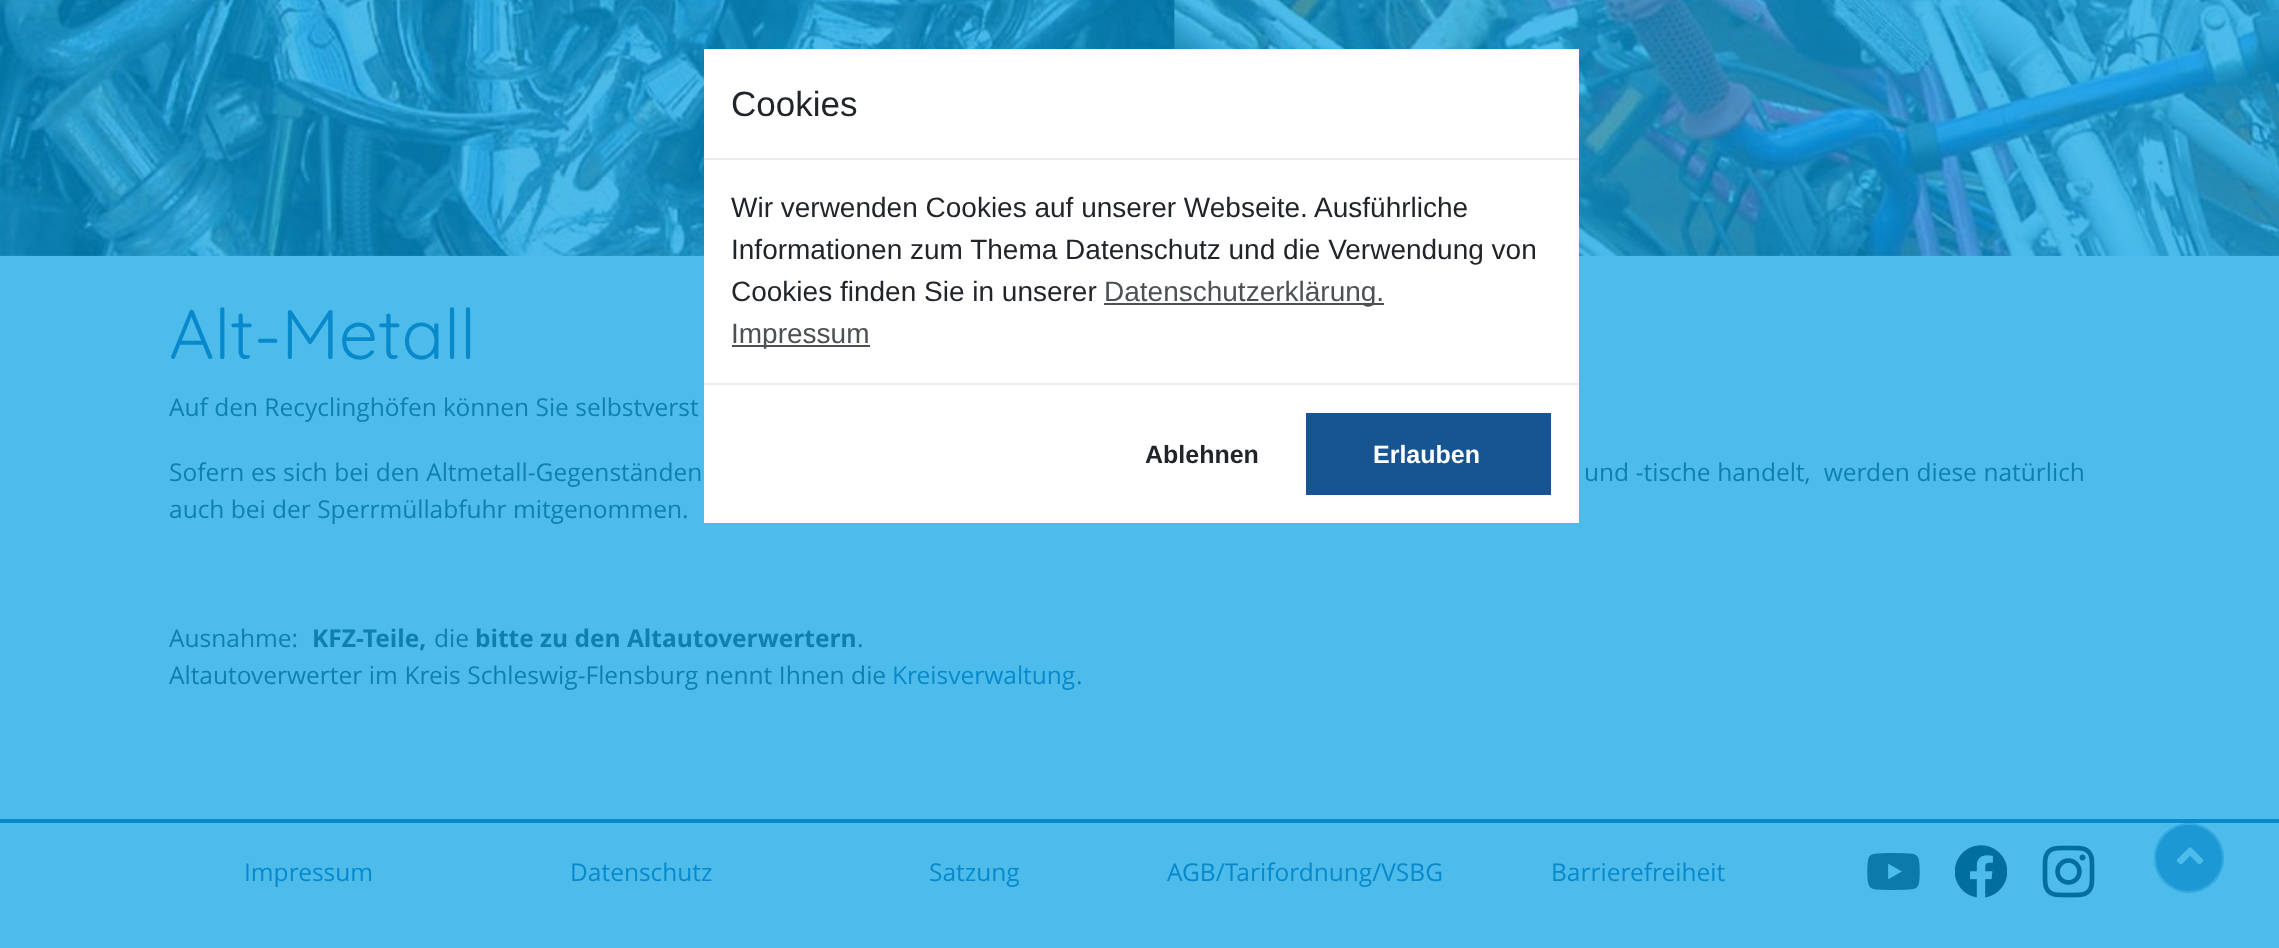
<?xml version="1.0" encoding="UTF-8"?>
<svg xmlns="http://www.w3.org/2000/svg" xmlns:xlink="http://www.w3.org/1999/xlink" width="2279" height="948">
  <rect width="100%" height="100%" fill="#4dbceb" />
  <image x="0" y="0" width="2279" height="256" xlink:href="image1.png" />
  <rect x="704" y="49" width="875" height="474" fill="#ffffff" />
  <rect x="704" y="158" width="875" height="2" fill="#e9ecef" />
  <rect x="1104" y="303" width="280" height="2" fill="#4d5154" />
  <rect x="732" y="345" width="138" height="2" fill="#4d5154" />
  <rect x="704" y="383" width="875" height="2" fill="#e9ecef" />
  <rect x="1306" y="413" width="245" height="82" fill="#175592" />
  <rect y="819" width="2279" height="4" fill="#0789cb" />
  <image x="1867" y="853" width="53" height="37" xlink:href="image2.png" />
  <image x="1955" y="845" width="52" height="53" xlink:href="image3.png" />
  <image x="2042" y="845" width="53" height="53" xlink:href="image4.png" />
  <circle cx="2189" cy="858" r="35" fill="#1c98d5" />
  <circle cx="2189" cy="858" r="34" fill="none" stroke="#4dbceb" stroke-opacity="0.5" stroke-width="2" />
  <image x="2177" y="847" width="27" height="18" xlink:href="image5.png" />
  <text x="731" y="116" style="font-family: Liberation Sans; font-size: 35px; fill: #212529">Cookies</text>
  <text x="731" y="217" style="font-family: Liberation Sans; font-size: 28px; fill: #212529">Wir verwenden Cookies auf unserer Webseite. Ausführliche</text>
  <text x="731" y="259" style="font-family: Liberation Sans; font-size: 28px; fill: #212529">Informationen zum Thema Datenschutz und die Verwendung von</text>
  <text x="731" y="301" style="font-family: Liberation Sans; font-size: 28px; fill: #212529">Cookies finden Sie in unserer</text>
  <text x="1104" y="301" style="font-family: Liberation Sans; font-size: 28px; fill: #4d5154">Datenschutzerklärung.</text>
  <text x="731" y="343" style="font-family: Liberation Sans; font-size: 28px; fill: #4d5154">Impressum</text>
  <text x="1145" y="463" style="font-family: Liberation Sans; font-size: 25px; font-weight: bold; fill: #212529">Ablehnen</text>
  <text x="1373" y="463" style="font-family: Liberation Sans; font-size: 25px; font-weight: bold; fill: #ffffff">Erlauben</text>
  <text x="169" y="359" style="font-family: Quicksand; font-size: 70px; fill: #0789cb">Alt-Metall</text>
  <text x="169" y="416" style="font-family: Open Sans; font-size: 24.5px; fill: #0f7fae">Auf den Recyclinghöfen können Sie selbstverst</text>
  <text x="169" y="481" word-spacing="0.25" style="font-family: Open Sans; font-size: 24.5px; fill: #0f7fae">Sofern es sich bei den Altmetall-Gegenständen</text>
  <text x="1584" y="481" word-spacing="0.25" style="font-family: Open Sans; font-size: 24.5px; fill: #0f7fae" xml:space="preserve">und -tische handelt,  werden diese natürlich</text>
  <text x="169" y="518" style="font-family: Open Sans; font-size: 24.5px; fill: #0f7fae">auch bei der Sperrmüllabfuhr mitgenommen.</text>
  <text x="169" y="647" style="font-family: Open Sans; font-size: 24.5px; fill: #0f7fae">Ausnahme:</text>
  <text x="312" y="647" style="font-family: Open Sans; font-size: 24.5px; font-weight: bold; fill: #0f7fae">KFZ-Teile,</text>
  <text x="434" y="647" style="font-family: Open Sans; font-size: 24.5px; fill: #0f7fae">die</text>
  <text x="475" y="647" style="font-family: Open Sans; font-size: 24.5px; font-weight: bold; fill: #0f7fae">bitte zu den Altautoverwertern</text>
  <text x="857" y="647" style="font-family: Open Sans; font-size: 24.5px; fill: #0f7fae">.</text>
  <text x="169" y="684" word-spacing="0.25" style="font-family: Open Sans; font-size: 24.5px; fill: #0f7fae">Altautoverwerter im Kreis Schleswig-Flensburg nennt Ihnen die</text>
  <text x="892" y="684" style="font-family: Open Sans; font-size: 24.5px; fill: #0789cb">Kreisverwaltung</text>
  <text x="1076" y="684" style="font-family: Open Sans; font-size: 24.5px; fill: #0f7fae">.</text>
  <text x="244" y="881" style="font-family: Open Sans; font-size: 24.5px; fill: #0789cb">Impressum</text>
  <text x="570" y="881" style="font-family: Open Sans; font-size: 24.5px; fill: #0789cb">Datenschutz</text>
  <text x="929" y="881" style="font-family: Open Sans; font-size: 24.5px; fill: #0789cb">Satzung</text>
  <text x="1167" y="881" style="font-family: Open Sans; font-size: 24.5px; fill: #0789cb">AGB/Tarifordnung/VSBG</text>
  <text x="1551" y="881" style="font-family: Open Sans; font-size: 24.5px; fill: #0789cb">Barrierefreiheit</text>
</svg>
